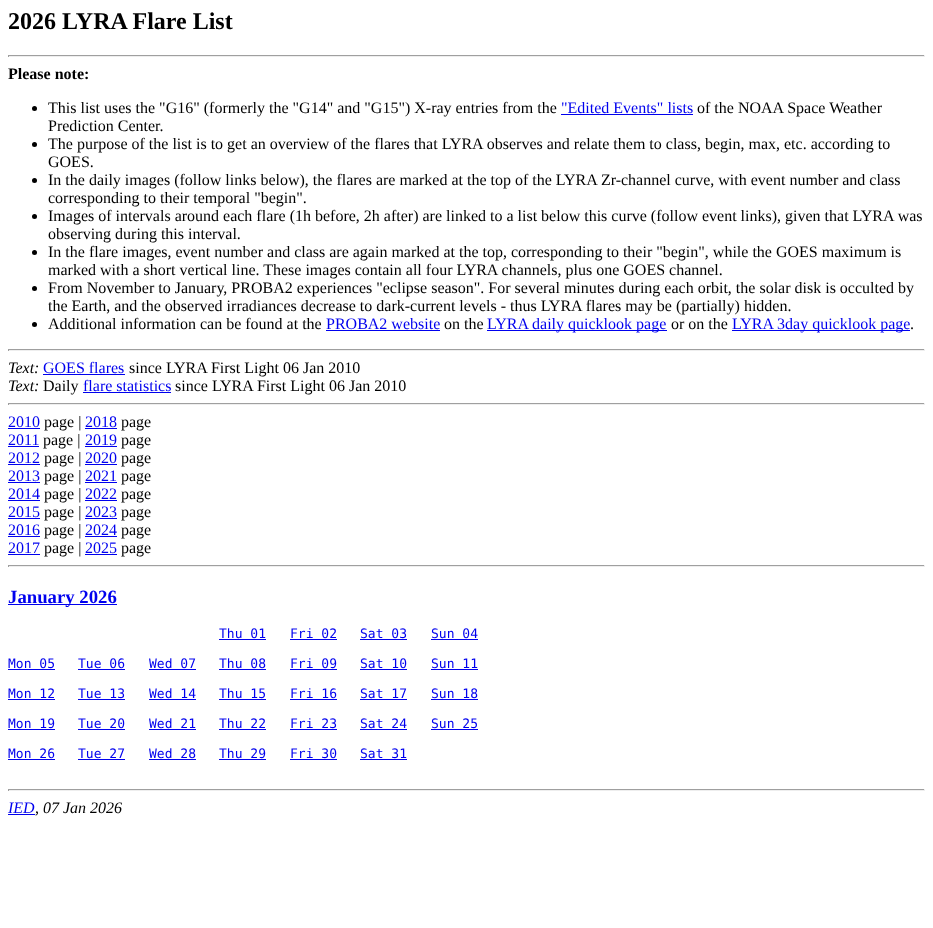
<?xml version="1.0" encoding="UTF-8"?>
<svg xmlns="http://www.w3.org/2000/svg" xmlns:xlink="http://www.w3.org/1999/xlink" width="933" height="928">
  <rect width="100%" height="100%" fill="#ffffff" />
  <rect x="8" y="55" width="917" height="1" fill="#9f9f9f" />
  <rect x="924" y="55" width="1" height="2" fill="#eeeeee" />
  <rect x="8" y="56" width="917" height="1" fill="#eeeeee" />
  <rect x="8" y="55" width="1" height="2" fill="#9f9f9f" />
  <circle cx="34.5" cy="108.5" r="2.5" fill="#000000" />
  <rect x="561" y="114" width="132" height="1" fill="#0000ee" />
  <circle cx="34.5" cy="144.5" r="2.5" fill="#000000" />
  <circle cx="34.5" cy="180.5" r="2.5" fill="#000000" />
  <circle cx="34.5" cy="216.5" r="2.5" fill="#000000" />
  <circle cx="34.5" cy="252.5" r="2.5" fill="#000000" />
  <circle cx="34.5" cy="288.5" r="2.5" fill="#000000" />
  <circle cx="34.5" cy="324.5" r="2.5" fill="#000000" />
  <rect x="326" y="330" width="114" height="1" fill="#0000ee" />
  <rect x="487" y="330" width="180" height="1" fill="#0000ee" />
  <rect x="732" y="330" width="178" height="1" fill="#0000ee" />
  <rect x="8" y="349" width="917" height="1" fill="#9f9f9f" />
  <rect x="924" y="349" width="1" height="2" fill="#eeeeee" />
  <rect x="8" y="350" width="917" height="1" fill="#eeeeee" />
  <rect x="8" y="349" width="1" height="2" fill="#9f9f9f" />
  <rect x="43" y="374" width="82" height="1" fill="#0000ee" />
  <rect x="83" y="392" width="88" height="1" fill="#0000ee" />
  <rect x="8" y="403" width="917" height="1" fill="#9f9f9f" />
  <rect x="924" y="403" width="1" height="2" fill="#eeeeee" />
  <rect x="8" y="404" width="917" height="1" fill="#eeeeee" />
  <rect x="8" y="403" width="1" height="2" fill="#9f9f9f" />
  <rect x="8" y="428" width="32" height="1" fill="#0000ee" />
  <rect x="85" y="428" width="32" height="1" fill="#0000ee" />
  <rect x="8" y="446" width="31" height="1" fill="#0000ee" />
  <rect x="85" y="446" width="32" height="1" fill="#0000ee" />
  <rect x="8" y="464" width="32" height="1" fill="#0000ee" />
  <rect x="85" y="464" width="32" height="1" fill="#0000ee" />
  <rect x="8" y="482" width="32" height="1" fill="#0000ee" />
  <rect x="85" y="482" width="32" height="1" fill="#0000ee" />
  <rect x="8" y="500" width="32" height="1" fill="#0000ee" />
  <rect x="85" y="500" width="32" height="1" fill="#0000ee" />
  <rect x="8" y="518" width="32" height="1" fill="#0000ee" />
  <rect x="85" y="518" width="32" height="1" fill="#0000ee" />
  <rect x="8" y="536" width="32" height="1" fill="#0000ee" />
  <rect x="85" y="536" width="32" height="1" fill="#0000ee" />
  <rect x="8" y="554" width="32" height="1" fill="#0000ee" />
  <rect x="85" y="554" width="32" height="1" fill="#0000ee" />
  <rect x="8" y="565" width="917" height="1" fill="#9f9f9f" />
  <rect x="924" y="565" width="1" height="2" fill="#eeeeee" />
  <rect x="8" y="566" width="917" height="1" fill="#eeeeee" />
  <rect x="8" y="565" width="1" height="2" fill="#9f9f9f" />
  <rect x="8" y="604" width="109" height="1" fill="#0000ee" />
  <rect x="219" y="639" width="47" height="1" fill="#0000ee" />
  <rect x="290" y="639" width="47" height="1" fill="#0000ee" />
  <rect x="360" y="639" width="47" height="1" fill="#0000ee" />
  <rect x="431" y="639" width="47" height="1" fill="#0000ee" />
  <rect x="8" y="669" width="47" height="1" fill="#0000ee" />
  <rect x="78" y="669" width="47" height="1" fill="#0000ee" />
  <rect x="149" y="669" width="47" height="1" fill="#0000ee" />
  <rect x="219" y="669" width="47" height="1" fill="#0000ee" />
  <rect x="290" y="669" width="47" height="1" fill="#0000ee" />
  <rect x="360" y="669" width="47" height="1" fill="#0000ee" />
  <rect x="431" y="669" width="47" height="1" fill="#0000ee" />
  <rect x="8" y="699" width="47" height="1" fill="#0000ee" />
  <rect x="78" y="699" width="47" height="1" fill="#0000ee" />
  <rect x="149" y="699" width="47" height="1" fill="#0000ee" />
  <rect x="219" y="699" width="47" height="1" fill="#0000ee" />
  <rect x="290" y="699" width="47" height="1" fill="#0000ee" />
  <rect x="360" y="699" width="47" height="1" fill="#0000ee" />
  <rect x="431" y="699" width="47" height="1" fill="#0000ee" />
  <rect x="8" y="729" width="47" height="1" fill="#0000ee" />
  <rect x="78" y="729" width="47" height="1" fill="#0000ee" />
  <rect x="149" y="729" width="47" height="1" fill="#0000ee" />
  <rect x="219" y="729" width="47" height="1" fill="#0000ee" />
  <rect x="290" y="729" width="47" height="1" fill="#0000ee" />
  <rect x="360" y="729" width="47" height="1" fill="#0000ee" />
  <rect x="431" y="729" width="47" height="1" fill="#0000ee" />
  <rect x="8" y="759" width="47" height="1" fill="#0000ee" />
  <rect x="78" y="759" width="47" height="1" fill="#0000ee" />
  <rect x="149" y="759" width="47" height="1" fill="#0000ee" />
  <rect x="219" y="759" width="47" height="1" fill="#0000ee" />
  <rect x="290" y="759" width="47" height="1" fill="#0000ee" />
  <rect x="360" y="759" width="47" height="1" fill="#0000ee" />
  <rect x="8" y="789" width="917" height="1" fill="#9f9f9f" />
  <rect x="924" y="789" width="1" height="2" fill="#eeeeee" />
  <rect x="8" y="790" width="917" height="1" fill="#eeeeee" />
  <rect x="8" y="789" width="1" height="2" fill="#9f9f9f" />
  <rect x="8" y="814" width="27" height="1" fill="#0000ee" />
  <text x="8" y="29" style="font-family: Liberation Serif; font-size: 24px; font-weight: bold; fill: #000000">2026 LYRA Flare List</text>
  <text x="8" y="79" style="font-family: Liberation Serif; font-size: 16px; font-weight: bold; fill: #000000">Please note:</text>
  <text x="48" y="113" style="font-family: Liberation Serif; font-size: 16px; fill: #000000">This list uses the "G16" (formerly the "G14" and "G15") X-ray entries from the</text>
  <text x="561" y="113" style="font-family: Liberation Serif; font-size: 16px; fill: #0000ee">"Edited Events" lists</text>
  <text x="697" y="113" style="font-family: Liberation Serif; font-size: 16px; fill: #000000">of the NOAA Space Weather</text>
  <text x="48" y="131" style="font-family: Liberation Serif; font-size: 16px; fill: #000000">Prediction Center.</text>
  <text x="48" y="149" style="font-family: Liberation Serif; font-size: 16px; fill: #000000">The purpose of the list is to get an overview of the flares that LYRA observes and relate them to class, begin, max, etc. according to</text>
  <text x="48" y="167" style="font-family: Liberation Serif; font-size: 16px; fill: #000000">GOES.</text>
  <text x="48" y="185" style="font-family: Liberation Serif; font-size: 16px; fill: #000000">In the daily images (follow links below), the flares are marked at the top of the LYRA Zr-channel curve, with event number and class</text>
  <text x="48" y="203" style="font-family: Liberation Serif; font-size: 16px; fill: #000000">corresponding to their temporal "begin".</text>
  <text x="48" y="221" style="font-family: Liberation Serif; font-size: 16px; fill: #000000">Images of intervals around each flare (1h before, 2h after) are linked to a list below this curve (follow event links), given that LYRA was</text>
  <text x="48" y="239" style="font-family: Liberation Serif; font-size: 16px; fill: #000000">observing during this interval.</text>
  <text x="48" y="257" style="font-family: Liberation Serif; font-size: 16px; fill: #000000">In the flare images, event number and class are again marked at the top, corresponding to their "begin", while the GOES maximum is</text>
  <text x="48" y="275" style="font-family: Liberation Serif; font-size: 16px; fill: #000000">marked with a short vertical line. These images contain all four LYRA channels, plus one GOES channel.</text>
  <text x="48" y="293" style="font-family: Liberation Serif; font-size: 16px; fill: #000000">From November to January, PROBA2 experiences "eclipse season". For several minutes during each orbit, the solar disk is occulted by</text>
  <text x="48" y="311" style="font-family: Liberation Serif; font-size: 16px; fill: #000000">the Earth, and the observed irradiances decrease to dark-current levels - thus LYRA flares may be (partially) hidden.</text>
  <text x="48" y="329" style="font-family: Liberation Serif; font-size: 16px; fill: #000000">Additional information can be found at the</text>
  <text x="326" y="329" style="font-family: Liberation Serif; font-size: 16px; fill: #0000ee">PROBA2 website</text>
  <text x="444" y="329" style="font-family: Liberation Serif; font-size: 16px; fill: #000000">on the</text>
  <text x="487" y="329" style="font-family: Liberation Serif; font-size: 16px; fill: #0000ee">LYRA daily quicklook page</text>
  <text x="671" y="329" style="font-family: Liberation Serif; font-size: 16px; fill: #000000">or on the</text>
  <text x="732" y="329" style="font-family: Liberation Serif; font-size: 16px; fill: #0000ee">LYRA 3day quicklook page</text>
  <text x="910" y="329" style="font-family: Liberation Serif; font-size: 16px; fill: #000000">.</text>
  <text x="8" y="373" style="font-family: Liberation Serif; font-size: 16px; font-style: italic; fill: #000000">Text:</text>
  <text x="43" y="373" style="font-family: Liberation Serif; font-size: 16px; fill: #0000ee">GOES flares</text>
  <text x="129" y="373" style="font-family: Liberation Serif; font-size: 16px; fill: #000000">since LYRA First Light 06 Jan 2010</text>
  <text x="8" y="391" style="font-family: Liberation Serif; font-size: 16px; font-style: italic; fill: #000000">Text:</text>
  <text x="43" y="391" style="font-family: Liberation Serif; font-size: 16px; fill: #000000">Daily</text>
  <text x="83" y="391" style="font-family: Liberation Serif; font-size: 16px; fill: #0000ee">flare statistics</text>
  <text x="175" y="391" style="font-family: Liberation Serif; font-size: 16px; fill: #000000">since LYRA First Light 06 Jan 2010</text>
  <text x="8" y="427" style="font-family: Liberation Serif; font-size: 16px; fill: #0000ee">2010</text>
  <text x="44" y="427" style="font-family: Liberation Serif; font-size: 16px; fill: #000000">page |</text>
  <text x="85" y="427" style="font-family: Liberation Serif; font-size: 16px; fill: #0000ee">2018</text>
  <text x="121" y="427" style="font-family: Liberation Serif; font-size: 16px; fill: #000000">page</text>
  <text x="8" y="445" style="font-family: Liberation Serif; font-size: 16px; fill: #0000ee">2011</text>
  <text x="43" y="445" style="font-family: Liberation Serif; font-size: 16px; fill: #000000">page |</text>
  <text x="85" y="445" style="font-family: Liberation Serif; font-size: 16px; fill: #0000ee">2019</text>
  <text x="121" y="445" style="font-family: Liberation Serif; font-size: 16px; fill: #000000">page</text>
  <text x="8" y="463" style="font-family: Liberation Serif; font-size: 16px; fill: #0000ee">2012</text>
  <text x="44" y="463" style="font-family: Liberation Serif; font-size: 16px; fill: #000000">page |</text>
  <text x="85" y="463" style="font-family: Liberation Serif; font-size: 16px; fill: #0000ee">2020</text>
  <text x="121" y="463" style="font-family: Liberation Serif; font-size: 16px; fill: #000000">page</text>
  <text x="8" y="481" style="font-family: Liberation Serif; font-size: 16px; fill: #0000ee">2013</text>
  <text x="44" y="481" style="font-family: Liberation Serif; font-size: 16px; fill: #000000">page |</text>
  <text x="85" y="481" style="font-family: Liberation Serif; font-size: 16px; fill: #0000ee">2021</text>
  <text x="121" y="481" style="font-family: Liberation Serif; font-size: 16px; fill: #000000">page</text>
  <text x="8" y="499" style="font-family: Liberation Serif; font-size: 16px; fill: #0000ee">2014</text>
  <text x="44" y="499" style="font-family: Liberation Serif; font-size: 16px; fill: #000000">page |</text>
  <text x="85" y="499" style="font-family: Liberation Serif; font-size: 16px; fill: #0000ee">2022</text>
  <text x="121" y="499" style="font-family: Liberation Serif; font-size: 16px; fill: #000000">page</text>
  <text x="8" y="517" style="font-family: Liberation Serif; font-size: 16px; fill: #0000ee">2015</text>
  <text x="44" y="517" style="font-family: Liberation Serif; font-size: 16px; fill: #000000">page |</text>
  <text x="85" y="517" style="font-family: Liberation Serif; font-size: 16px; fill: #0000ee">2023</text>
  <text x="121" y="517" style="font-family: Liberation Serif; font-size: 16px; fill: #000000">page</text>
  <text x="8" y="535" style="font-family: Liberation Serif; font-size: 16px; fill: #0000ee">2016</text>
  <text x="44" y="535" style="font-family: Liberation Serif; font-size: 16px; fill: #000000">page |</text>
  <text x="85" y="535" style="font-family: Liberation Serif; font-size: 16px; fill: #0000ee">2024</text>
  <text x="121" y="535" style="font-family: Liberation Serif; font-size: 16px; fill: #000000">page</text>
  <text x="8" y="553" style="font-family: Liberation Serif; font-size: 16px; fill: #0000ee">2017</text>
  <text x="44" y="553" style="font-family: Liberation Serif; font-size: 16px; fill: #000000">page |</text>
  <text x="85" y="553" style="font-family: Liberation Serif; font-size: 16px; fill: #0000ee">2025</text>
  <text x="121" y="553" style="font-family: Liberation Serif; font-size: 16px; fill: #000000">page</text>
  <text x="8" y="603" style="font-family: Liberation Serif; font-size: 18.75px; font-weight: bold; fill: #0000ee">January 2026</text>
  <text x="219" y="638" style="font-family: DejaVu Sans Mono; font-size: 13px; fill: #0000ee">Thu 01</text>
  <text x="290" y="638" style="font-family: DejaVu Sans Mono; font-size: 13px; fill: #0000ee">Fri 02</text>
  <text x="360" y="638" style="font-family: DejaVu Sans Mono; font-size: 13px; fill: #0000ee">Sat 03</text>
  <text x="431" y="638" style="font-family: DejaVu Sans Mono; font-size: 13px; fill: #0000ee">Sun 04</text>
  <text x="8" y="668" style="font-family: DejaVu Sans Mono; font-size: 13px; fill: #0000ee">Mon 05</text>
  <text x="78" y="668" style="font-family: DejaVu Sans Mono; font-size: 13px; fill: #0000ee">Tue 06</text>
  <text x="149" y="668" style="font-family: DejaVu Sans Mono; font-size: 13px; fill: #0000ee">Wed 07</text>
  <text x="219" y="668" style="font-family: DejaVu Sans Mono; font-size: 13px; fill: #0000ee">Thu 08</text>
  <text x="290" y="668" style="font-family: DejaVu Sans Mono; font-size: 13px; fill: #0000ee">Fri 09</text>
  <text x="360" y="668" style="font-family: DejaVu Sans Mono; font-size: 13px; fill: #0000ee">Sat 10</text>
  <text x="431" y="668" style="font-family: DejaVu Sans Mono; font-size: 13px; fill: #0000ee">Sun 11</text>
  <text x="8" y="698" style="font-family: DejaVu Sans Mono; font-size: 13px; fill: #0000ee">Mon 12</text>
  <text x="78" y="698" style="font-family: DejaVu Sans Mono; font-size: 13px; fill: #0000ee">Tue 13</text>
  <text x="149" y="698" style="font-family: DejaVu Sans Mono; font-size: 13px; fill: #0000ee">Wed 14</text>
  <text x="219" y="698" style="font-family: DejaVu Sans Mono; font-size: 13px; fill: #0000ee">Thu 15</text>
  <text x="290" y="698" style="font-family: DejaVu Sans Mono; font-size: 13px; fill: #0000ee">Fri 16</text>
  <text x="360" y="698" style="font-family: DejaVu Sans Mono; font-size: 13px; fill: #0000ee">Sat 17</text>
  <text x="431" y="698" style="font-family: DejaVu Sans Mono; font-size: 13px; fill: #0000ee">Sun 18</text>
  <text x="8" y="728" style="font-family: DejaVu Sans Mono; font-size: 13px; fill: #0000ee">Mon 19</text>
  <text x="78" y="728" style="font-family: DejaVu Sans Mono; font-size: 13px; fill: #0000ee">Tue 20</text>
  <text x="149" y="728" style="font-family: DejaVu Sans Mono; font-size: 13px; fill: #0000ee">Wed 21</text>
  <text x="219" y="728" style="font-family: DejaVu Sans Mono; font-size: 13px; fill: #0000ee">Thu 22</text>
  <text x="290" y="728" style="font-family: DejaVu Sans Mono; font-size: 13px; fill: #0000ee">Fri 23</text>
  <text x="360" y="728" style="font-family: DejaVu Sans Mono; font-size: 13px; fill: #0000ee">Sat 24</text>
  <text x="431" y="728" style="font-family: DejaVu Sans Mono; font-size: 13px; fill: #0000ee">Sun 25</text>
  <text x="8" y="758" style="font-family: DejaVu Sans Mono; font-size: 13px; fill: #0000ee">Mon 26</text>
  <text x="78" y="758" style="font-family: DejaVu Sans Mono; font-size: 13px; fill: #0000ee">Tue 27</text>
  <text x="149" y="758" style="font-family: DejaVu Sans Mono; font-size: 13px; fill: #0000ee">Wed 28</text>
  <text x="219" y="758" style="font-family: DejaVu Sans Mono; font-size: 13px; fill: #0000ee">Thu 29</text>
  <text x="290" y="758" style="font-family: DejaVu Sans Mono; font-size: 13px; fill: #0000ee">Fri 30</text>
  <text x="360" y="758" style="font-family: DejaVu Sans Mono; font-size: 13px; fill: #0000ee">Sat 31</text>
  <text x="8" y="813" style="font-family: Liberation Serif; font-size: 16px; font-style: italic; fill: #0000ee">IED</text>
  <text x="35" y="813" style="font-family: Liberation Serif; font-size: 16px; font-style: italic; fill: #000000">, 07 Jan 2026</text>
</svg>
